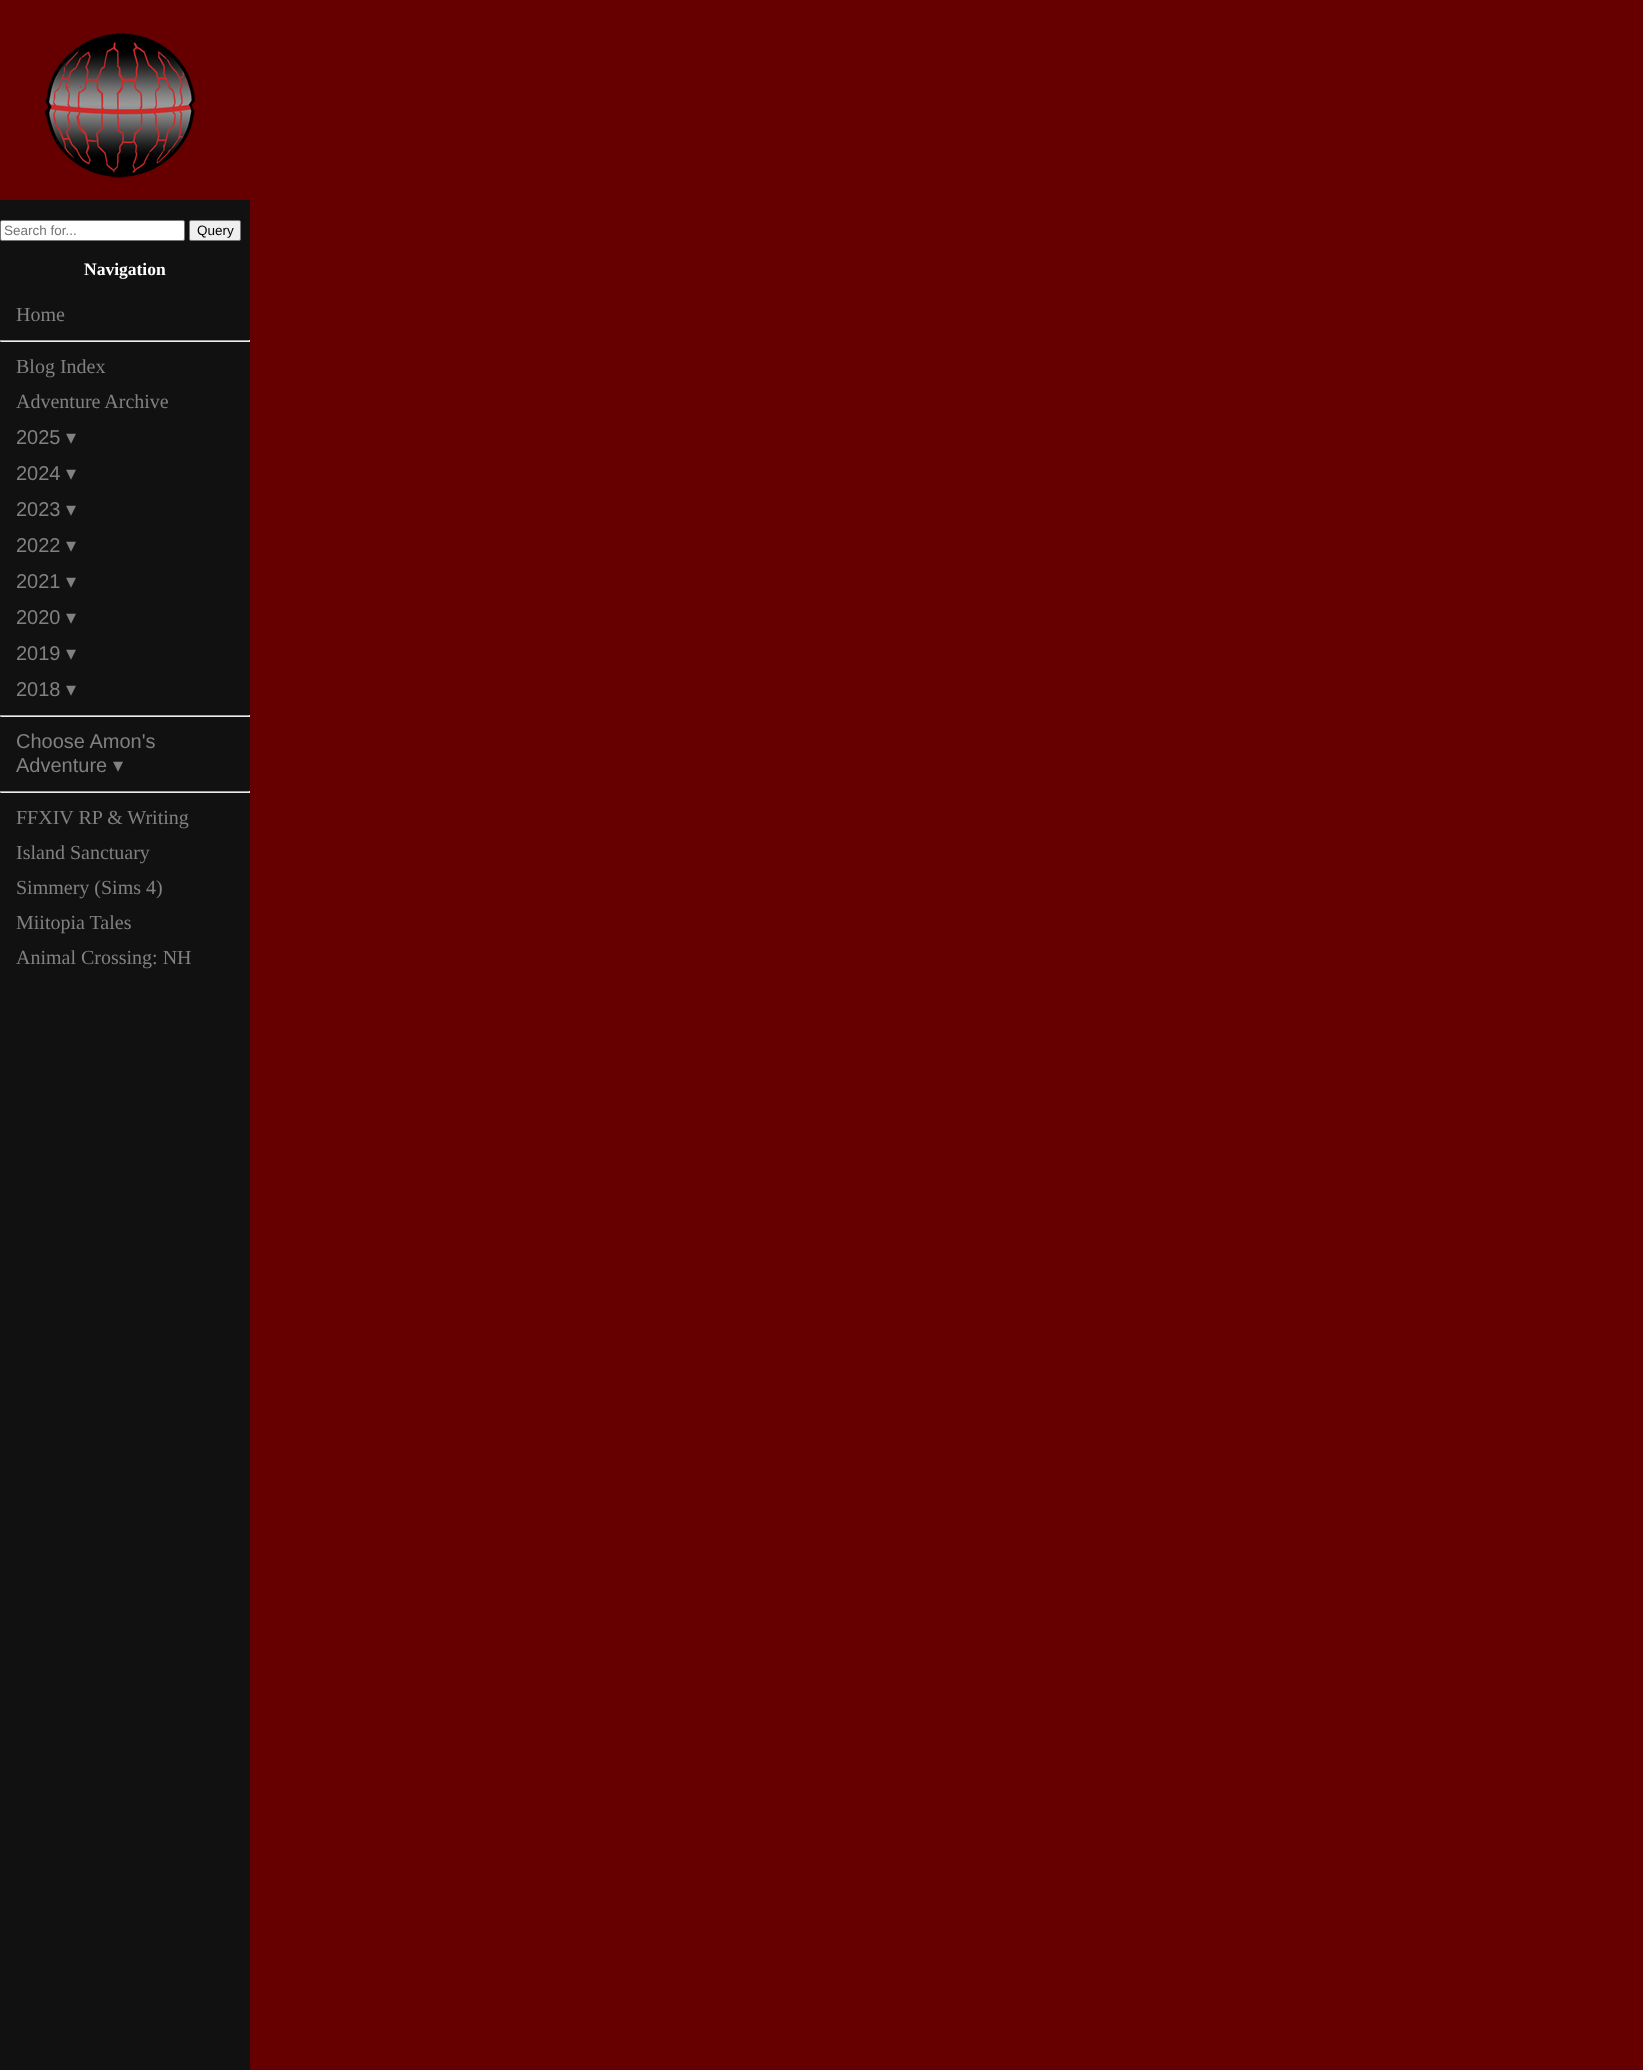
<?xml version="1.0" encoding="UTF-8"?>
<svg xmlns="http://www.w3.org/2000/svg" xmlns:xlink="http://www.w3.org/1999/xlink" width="1643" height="2070">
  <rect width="100%" height="100%" fill="#660000" />
  <image x="45" y="33" width="150" height="145" xlink:href="image1.png" />
  <rect y="200" width="250" height="1870" fill="#111111" />
  <rect x="0.5" y="220.5" width="184" height="20" rx="1.5" fill="#ffffff" stroke="#767676" />
  <rect x="189.5" y="220.5" width="51" height="20" rx="1.5" fill="#efefef" stroke="#767676" />
  <rect y="340" width="250" height="1" fill="#9f9f9f" />
  <rect x="249" y="340" width="1" height="2" fill="#eeeeee" />
  <rect y="341" width="250" height="1" fill="#eeeeee" />
  <rect y="340" width="1" height="2" fill="#9f9f9f" />
  <rect y="715" width="250" height="1" fill="#9f9f9f" />
  <rect x="249" y="715" width="1" height="2" fill="#eeeeee" />
  <rect y="716" width="250" height="1" fill="#eeeeee" />
  <rect y="715" width="1" height="2" fill="#9f9f9f" />
  <rect y="791" width="250" height="1" fill="#9f9f9f" />
  <rect x="249" y="791" width="1" height="2" fill="#eeeeee" />
  <rect y="792" width="250" height="1" fill="#eeeeee" />
  <rect y="791" width="1" height="2" fill="#9f9f9f" />
  <text x="4" y="235" style="font-family: Liberation Sans; font-size: 13.5px; fill: #757575">Search for...</text>
  <text x="197" y="235" style="font-family: Liberation Sans; font-size: 13.5px; fill: #000000">Query</text>
  <text x="84" y="275" style="font-family: Liberation Serif; font-size: 17.5px; font-weight: bold; fill: #ffffff">Navigation</text>
  <text x="16" y="321" style="font-family: Liberation Serif; font-size: 20px; fill: #818181">Home</text>
  <text x="16" y="373" style="font-family: Liberation Serif; font-size: 20px; fill: #818181">Blog Index</text>
  <text x="16" y="408" style="font-family: Liberation Serif; font-size: 20px; fill: #818181">Adventure Archive</text>
  <text x="16" y="444" style="font-family: Liberation Sans; font-size: 20px; fill: #818181">2025</text>
  <text x="66" y="444" style="font-family: DejaVu Sans; font-size: 20px; fill: #818181">▾</text>
  <text x="16" y="480" style="font-family: Liberation Sans; font-size: 20px; fill: #818181">2024</text>
  <text x="66" y="480" style="font-family: DejaVu Sans; font-size: 20px; fill: #818181">▾</text>
  <text x="16" y="516" style="font-family: Liberation Sans; font-size: 20px; fill: #818181">2023</text>
  <text x="66" y="516" style="font-family: DejaVu Sans; font-size: 20px; fill: #818181">▾</text>
  <text x="16" y="552" style="font-family: Liberation Sans; font-size: 20px; fill: #818181">2022</text>
  <text x="66" y="552" style="font-family: DejaVu Sans; font-size: 20px; fill: #818181">▾</text>
  <text x="16" y="588" style="font-family: Liberation Sans; font-size: 20px; fill: #818181">2021</text>
  <text x="66" y="588" style="font-family: DejaVu Sans; font-size: 20px; fill: #818181">▾</text>
  <text x="16" y="624" style="font-family: Liberation Sans; font-size: 20px; fill: #818181">2020</text>
  <text x="66" y="624" style="font-family: DejaVu Sans; font-size: 20px; fill: #818181">▾</text>
  <text x="16" y="660" style="font-family: Liberation Sans; font-size: 20px; fill: #818181">2019</text>
  <text x="66" y="660" style="font-family: DejaVu Sans; font-size: 20px; fill: #818181">▾</text>
  <text x="16" y="696" style="font-family: Liberation Sans; font-size: 20px; fill: #818181">2018</text>
  <text x="66" y="696" style="font-family: DejaVu Sans; font-size: 20px; fill: #818181">▾</text>
  <text x="16" y="748" style="font-family: Liberation Sans; font-size: 20px; fill: #818181">Choose Amon's</text>
  <text x="16" y="772" style="font-family: Liberation Sans; font-size: 20px; fill: #818181">Adventure</text>
  <text x="113" y="772" style="font-family: DejaVu Sans; font-size: 20px; fill: #818181">▾</text>
  <text x="16" y="824" style="font-family: Liberation Serif; font-size: 20px; fill: #818181">FFXIV RP &amp; Writing</text>
  <text x="16" y="859" style="font-family: Liberation Serif; font-size: 20px; fill: #818181">Island Sanctuary</text>
  <text x="16" y="894" style="font-family: Liberation Serif; font-size: 20px; fill: #818181">Simmery (Sims 4)</text>
  <text x="16" y="929" style="font-family: Liberation Serif; font-size: 20px; fill: #818181">Miitopia Tales</text>
  <text x="16" y="964" style="font-family: Liberation Serif; font-size: 20px; fill: #818181">Animal Crossing: NH</text>
</svg>
